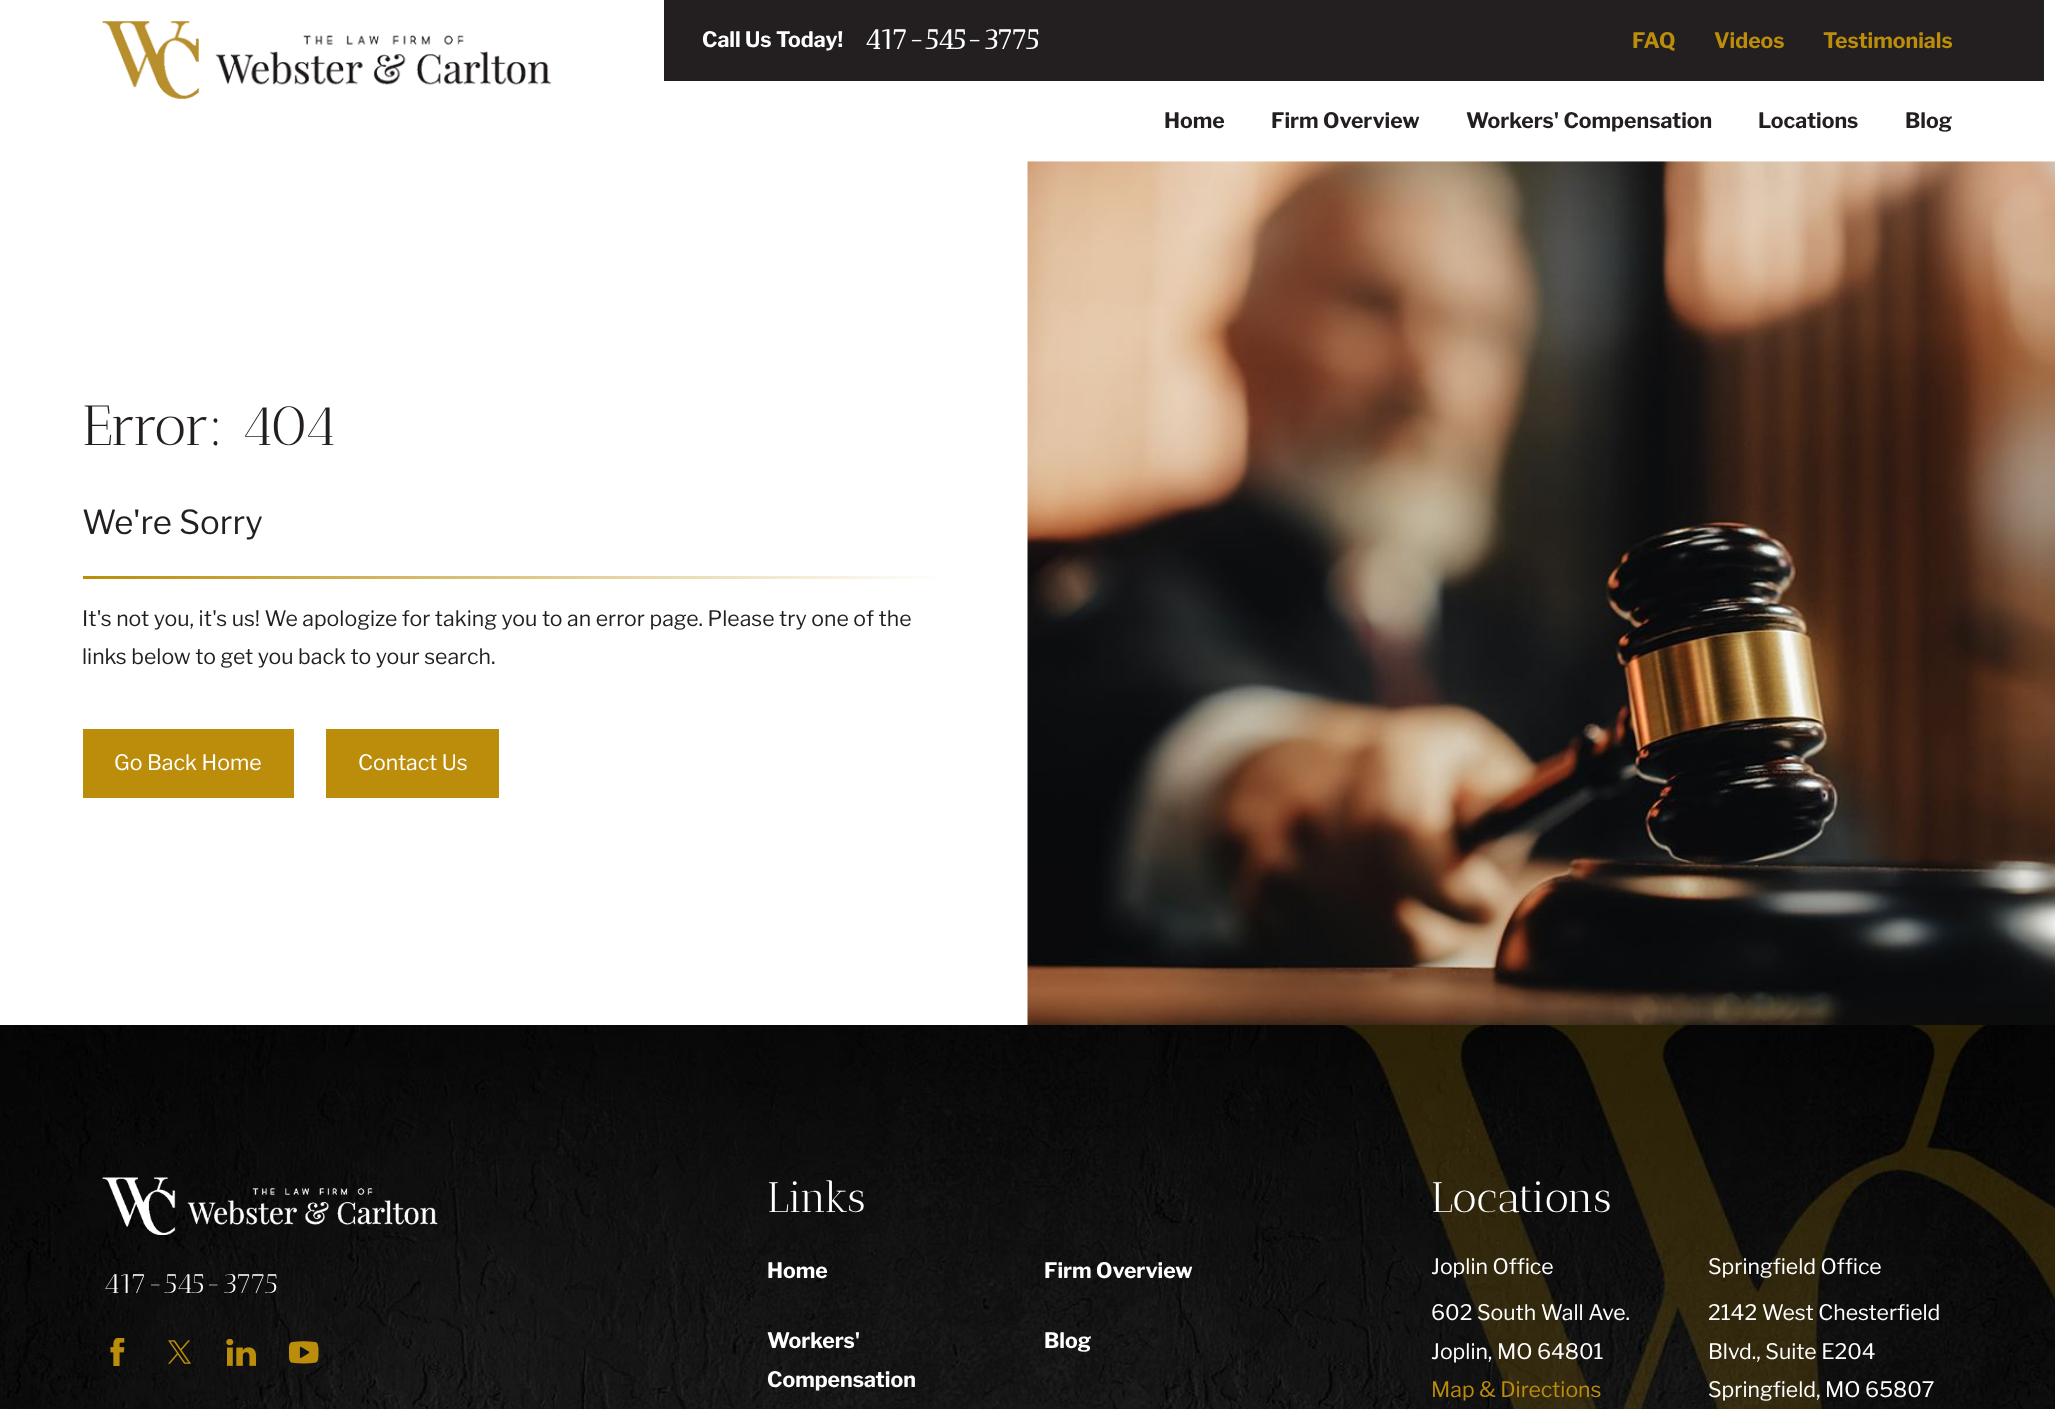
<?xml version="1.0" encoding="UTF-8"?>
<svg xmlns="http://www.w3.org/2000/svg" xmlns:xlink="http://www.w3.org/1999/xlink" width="2055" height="1409">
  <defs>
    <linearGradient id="g1" gradientUnits="userSpaceOnUse" x1="83" y1="578" x2="945" y2="578"><stop offset="0" stop-color="#bb8d0b" /><stop offset="1" stop-color="#ffffff" /></linearGradient>
  </defs>
  <rect width="100%" height="100%" fill="#ffffff" />
  <image x="102" y="21" width="450" height="78" xlink:href="image1.png" />
  <rect x="664" width="1380" height="81" fill="#231f20" />
  <rect x="83" y="576" width="853" height="3" fill="url(#g1)" />
  <rect x="83" y="729" width="211" height="69" fill="#bb8d0b" />
  <rect x="326" y="729" width="173" height="69" fill="#bb8d0b" />
  <image x="1027" y="161" width="1028" height="864" xlink:href="image2.png" />
  <image x="0" y="1025" width="2055" height="384" xlink:href="image3.png" />
  <image x="102" y="1177" width="336" height="58" xlink:href="image4.png" />
  <image x="110" y="1338" width="15" height="28" xlink:href="image5.png" />
  <image x="168" y="1340" width="23" height="24" xlink:href="image6.png" />
  <image x="226" y="1338" width="30" height="28" xlink:href="image7.png" />
  <image x="289" y="1341" width="30" height="23" xlink:href="image8.png" />
  <text x="702" y="47" style="font-family: Libre Franklin; font-size: 21.25px; font-weight: bold; fill: #ffffff">Call Us Today!</text>
  <text x="864" y="49" style="font-family: Antic Didone; font-size: 28.5px; font-weight: bold; fill: #ffffff">417-545-3775</text>
  <text x="1632" y="48" style="font-family: Libre Franklin; font-size: 21.25px; font-weight: bold; fill: #bb8d0b">FAQ</text>
  <text x="1714" y="48" style="font-family: Libre Franklin; font-size: 21.25px; font-weight: bold; fill: #bb8d0b">Videos</text>
  <text x="1823" y="48" style="font-family: Libre Franklin; font-size: 21.25px; font-weight: bold; fill: #bb8d0b">Testimonials</text>
  <text x="1164" y="128" style="font-family: Libre Franklin; font-size: 21.25px; font-weight: bold; fill: #231f20">Home</text>
  <text x="1271" y="128" style="font-family: Libre Franklin; font-size: 21.25px; font-weight: bold; fill: #231f20">Firm Overview</text>
  <text x="1466" y="128" style="font-family: Libre Franklin; font-size: 21.25px; font-weight: bold; fill: #231f20">Workers' Compensation</text>
  <text x="1758" y="128" style="font-family: Libre Franklin; font-size: 21.25px; font-weight: bold; fill: #231f20">Locations</text>
  <text x="1905" y="128" style="font-family: Libre Franklin; font-size: 21.25px; font-weight: bold; fill: #231f20">Blog</text>
  <text x="82" y="445" style="font-family: Antic Didone; font-size: 56.5px; fill: #231f20">Error: 404</text>
  <text x="82" y="534" style="font-family: Libre Franklin; font-size: 33px; fill: #231f20">We're Sorry</text>
  <text x="82" y="626" style="font-family: Libre Franklin; font-size: 21.25px; fill: #231f20">It's not you, it's us! We apologize for taking you to an error page. Please try one of the</text>
  <text x="82" y="664" style="font-family: Libre Franklin; font-size: 21.25px; fill: #231f20">links below to get you back to your search.</text>
  <text x="114" y="770" style="font-family: Libre Franklin; font-size: 21.25px; fill: #ffffff">Go Back Home</text>
  <text x="358" y="770" style="font-family: Libre Franklin; font-size: 21.25px; fill: #ffffff">Contact Us</text>
  <text x="103" y="1293" style="font-family: Antic Didone; font-size: 28.5px; fill: #ffffff">417-545-3775</text>
  <text x="767" y="1212" style="font-family: Antic Didone; font-size: 42.5px; fill: #ffffff">Links</text>
  <text x="767" y="1278" style="font-family: Libre Franklin; font-size: 21.25px; font-weight: bold; fill: #ffffff">Home</text>
  <text x="1044" y="1278" style="font-family: Libre Franklin; font-size: 21.25px; font-weight: bold; fill: #ffffff">Firm Overview</text>
  <text x="767" y="1348" style="font-family: Libre Franklin; font-size: 21.25px; font-weight: bold; fill: #ffffff">Workers'</text>
  <text x="767" y="1387" style="font-family: Libre Franklin; font-size: 21.25px; font-weight: bold; fill: #ffffff">Compensation</text>
  <text x="1044" y="1348" style="font-family: Libre Franklin; font-size: 21.25px; font-weight: bold; fill: #ffffff">Blog</text>
  <text x="1431" y="1212" style="font-family: Antic Didone; font-size: 42.5px; fill: #ffffff">Locations</text>
  <text x="1431" y="1274" style="font-family: Libre Franklin; font-size: 21.25px; fill: #ffffff">Joplin Office</text>
  <text x="1431" y="1320" style="font-family: Libre Franklin; font-size: 21.25px; fill: #ffffff">602 South Wall Ave.</text>
  <text x="1431" y="1359" style="font-family: Libre Franklin; font-size: 21.25px; fill: #ffffff">Joplin, MO 64801</text>
  <text x="1431" y="1397" style="font-family: Libre Franklin; font-size: 21.25px; fill: #bb8d0b">Map &amp; Directions</text>
  <text x="1708" y="1274" style="font-family: Libre Franklin; font-size: 21.25px; fill: #ffffff">Springfield Office</text>
  <text x="1708" y="1320" style="font-family: Libre Franklin; font-size: 21.25px; fill: #ffffff">2142 West Chesterfield</text>
  <text x="1708" y="1359" style="font-family: Libre Franklin; font-size: 21.25px; fill: #ffffff">Blvd., Suite E204</text>
  <text x="1708" y="1397" style="font-family: Libre Franklin; font-size: 21.25px; fill: #ffffff">Springfield, MO 65807</text>
</svg>
